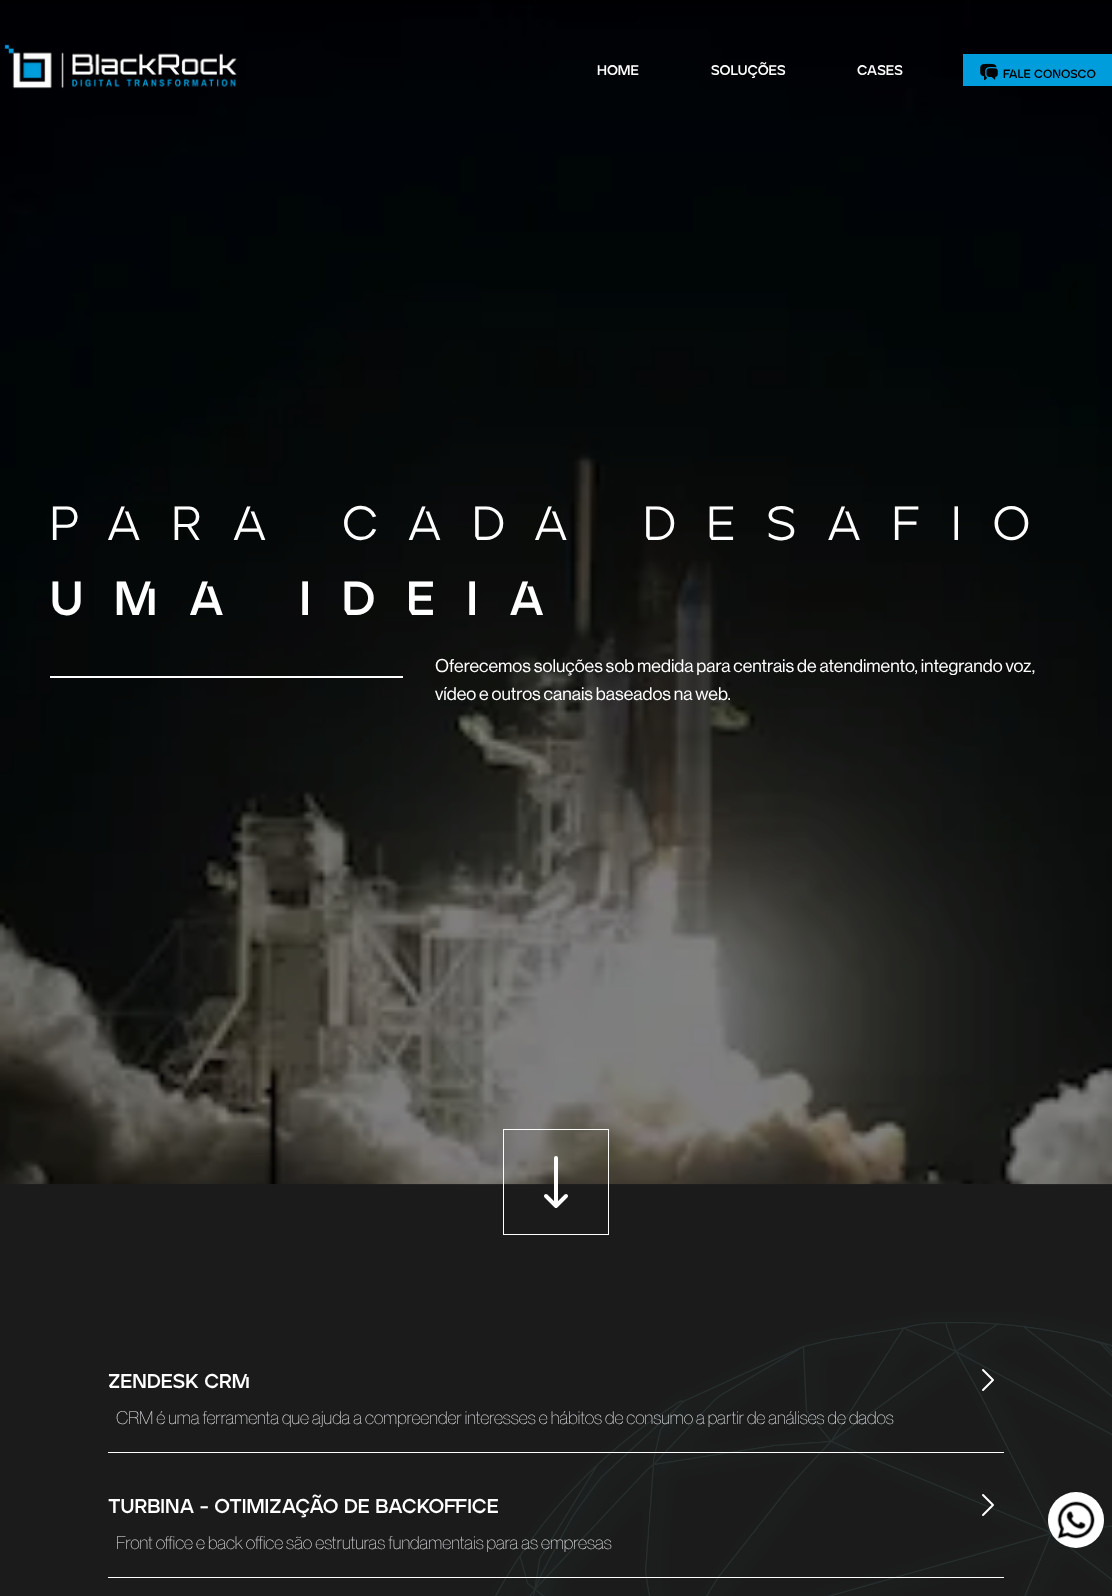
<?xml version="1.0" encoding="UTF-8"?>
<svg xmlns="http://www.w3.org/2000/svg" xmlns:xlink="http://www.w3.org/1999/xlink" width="1112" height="1596">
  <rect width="100%" height="100%" fill="#000000" />
  <image x="0" y="0" width="1112" height="1185" xlink:href="image3.png" />
  <image x="4" y="44" width="233" height="45" xlink:href="image1.png" />
  <rect x="963" y="54" width="149" height="32" fill="#009ddc" />
  <image x="980" y="63" width="18" height="18" xlink:href="image2.png" />
  <rect x="50" y="676" width="353" height="2" fill="#ffffff" />
  <rect y="1185" width="1112" height="411" fill="#1c1c1c" />
  <image x="490" y="1312" width="622" height="284" xlink:href="image4.png" />
  <rect y="1184" width="1112" height="412" fill="#1c1c1c" fill-opacity="0.9" />
  <rect x="503.5" y="1129.5" width="105" height="105" fill="none" stroke="#ffffff" />
  <path d="M 566 1196 l -10 10 m 0 0 l -10 -10 m 10 10 v -48" fill="none" stroke="#ffffff" stroke-width="4" stroke-linecap="round" stroke-linejoin="round" />
  <rect x="108" y="1452" width="896" height="1" fill="#ffffff" />
  <path d="M 983 1370 l 10 10 l -10 10" fill="none" stroke="#ffffff" stroke-width="2" stroke-linecap="round" stroke-linejoin="round" />
  <rect x="108" y="1577" width="896" height="1" fill="#ffffff" />
  <path d="M 983 1495 l 10 10 l -10 10" fill="none" stroke="#ffffff" stroke-width="2" stroke-linecap="round" stroke-linejoin="round" />
  <circle cx="1076" cy="1520" r="28" fill="#ffffff" />
  <image x="1057" y="1501" width="38" height="38" xlink:href="image5.png" />
  <text x="597" y="75" style="font-family: 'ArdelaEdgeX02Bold'; font-size: 14px; font-weight: bold; fill: #ffffff">Home</text>
  <text x="711" y="75" style="font-family: 'ArdelaEdgeX02Bold'; font-size: 14px; font-weight: bold; fill: #ffffff">Soluções</text>
  <text x="857" y="75" style="font-family: 'ArdelaEdgeX02Bold'; font-size: 14px; font-weight: bold; fill: #ffffff">Cases</text>
  <text x="1003" y="78" style="font-family: 'ArdelaEdgeX02Bold'; font-size: 12px; font-weight: bold; fill: #000000">FALE CONOSCO</text>
  <text x="50" y="540" style="font-family: 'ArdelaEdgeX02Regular'; font-size: 48px; letter-spacing: 31px; fill: #ffffff">PARA CADA DESAFIO</text>
  <text x="50" y="615" style="font-family: 'ArdelaEdgeX02Bold'; font-size: 48px; font-weight: bold; letter-spacing: 31px; fill: #ffffff">UMA IDEIA</text>
  <text x="435" y="672" style="font-family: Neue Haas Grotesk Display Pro; font-size: 18px; fill: #ffffff">Oferecemos soluções sob medida para centrais de atendimento, integrando voz,</text>
  <text x="435" y="700" style="font-family: Neue Haas Grotesk Display Pro; font-size: 18px; fill: #ffffff">vídeo e outros canais baseados na web.</text>
  <text x="108" y="1388" style="font-family: 'ArdelaEdgeX02Bold'; font-size: 20px; font-weight: bold; fill: #ffffff">Zendesk CRM</text>
  <text x="116" y="1424" style="font-family: Neue Haas Grotesk Display Pro; font-size: 18px; font-weight: 100; fill: #e5e7eb">CRM é uma ferramenta que ajuda a compreender interesses e hábitos de consumo a partir de análises de dados</text>
  <text x="108" y="1513" style="font-family: 'ArdelaEdgeX02Bold'; font-size: 20px; font-weight: bold; fill: #ffffff">Turbina - Otimização de backoffice</text>
  <text x="116" y="1549" style="font-family: Neue Haas Grotesk Display Pro; font-size: 18px; font-weight: 100; fill: #e5e7eb">Front office e back office são estruturas fundamentais para as empresas</text>
</svg>
